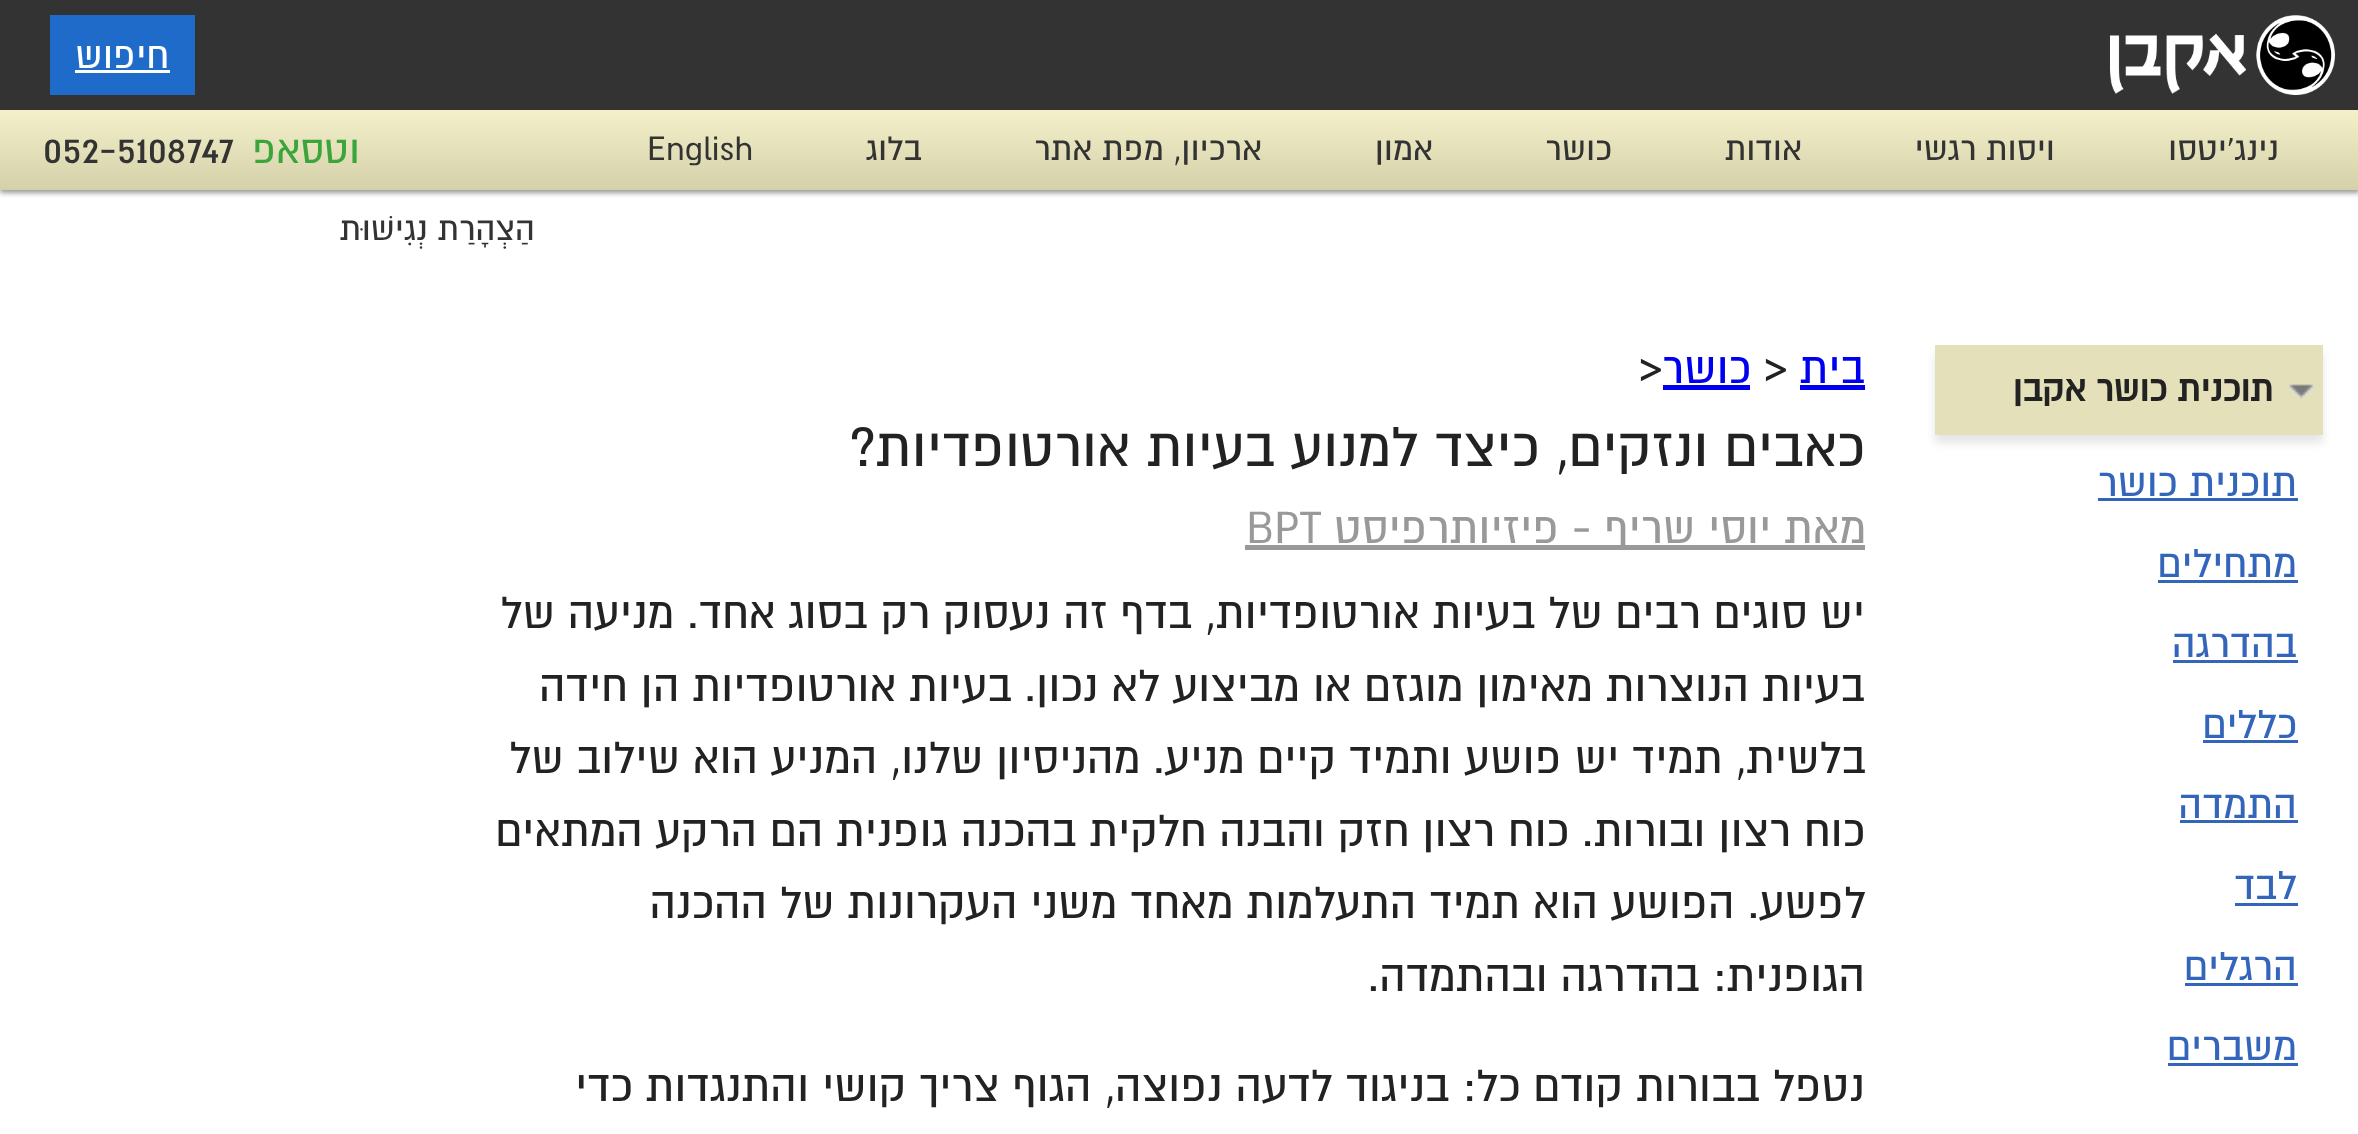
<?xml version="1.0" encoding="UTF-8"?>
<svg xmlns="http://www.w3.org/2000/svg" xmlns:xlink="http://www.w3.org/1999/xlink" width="2358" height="1134">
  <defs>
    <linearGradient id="g1" gradientUnits="userSpaceOnUse" x1="1180" y1="110" x2="1180" y2="190"><stop offset="0" stop-color="#f4f1ca" /><stop offset="1" stop-color="#d4d1aa" /></linearGradient>
  </defs>
  <rect width="100%" height="100%" fill="#ffffff" />
  <rect width="2358" height="110" fill="#333333" />
  <image x="2110" y="15" width="225" height="80" xlink:href="image1.png" />
  <rect x="50" y="15" width="145" height="80" fill="#1f6bca" />
  <rect x="75" y="70" width="95" height="3" fill="#ffffff" />
  <rect y="113" width="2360" height="80" fill="#000000" fill-opacity="0.4" filter="blur(2.5px)" />
  <rect y="110" width="2358" height="80" fill="url(#g1)" />
  <rect x="1935" y="353" width="388" height="90" fill="#000000" fill-opacity="0.1" filter="blur(4px)" />
  <rect x="1935" y="345" width="388" height="90" fill="#e4e1ba" />
  <image x="2287" y="384" width="29" height="15" xlink:href="image2.png" />
  <rect x="2098" y="498" width="200" height="3" fill="#3366bb" />
  <rect x="2158" y="580" width="140" height="3" fill="#3366bb" />
  <rect x="2173" y="660" width="125" height="3" fill="#3366bb" />
  <rect x="2203" y="740" width="95" height="3" fill="#3366bb" />
  <rect x="2180" y="820" width="118" height="3" fill="#3366bb" />
  <rect x="2235" y="903" width="63" height="3" fill="#3366bb" />
  <rect x="2185" y="983" width="113" height="3" fill="#3366bb" />
  <rect x="2168" y="1063" width="130" height="3" fill="#3366bb" />
  <rect x="1800" y="385" width="65" height="5" fill="#0000ee" />
  <rect x="1663" y="385" width="87" height="5" fill="#0000ee" />
  <rect x="1245" y="545" width="620" height="5" fill="#999999" />
  <text x="169" y="68" style="font-family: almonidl; font-size: 42.5px; direction: rtl; fill: #ffffff">חיפוש</text>
  <text x="2279" y="160" style="font-family: almonidl; font-size: 37.5px; direction: rtl; fill: #333333">נינג'יטסו</text>
  <text x="2055" y="160" style="font-family: almonidl; font-size: 37.5px; direction: rtl; fill: #333333">ויסות רגשי</text>
  <text x="1802" y="160" style="font-family: almonidl; font-size: 37.5px; direction: rtl; fill: #333333">אודות</text>
  <text x="1612" y="160" style="font-family: almonidl; font-size: 37.5px; direction: rtl; fill: #333333">כושר</text>
  <text x="1433" y="160" style="font-family: almonidl; font-size: 37.5px; direction: rtl; fill: #333333">אמון</text>
  <text x="1262" y="160" style="font-family: almonidl; font-size: 37.5px; direction: rtl; fill: #333333">ארכיון, מפת אתר</text>
  <text x="922" y="160" style="font-family: almonidl; font-size: 37.5px; direction: rtl; fill: #333333">בלוג</text>
  <text x="647" y="160" style="font-family: almonidl; font-size: 37.5px; fill: #333333">English</text>
  <text x="535" y="240" style="font-family: almonidl; font-size: 37.5px; direction: rtl; fill: #333333">הַצְהָרַת נְגִישׁוּת</text>
  <text x="360" y="163" style="font-family: almonidl; font-size: 45px; direction: rtl; fill: #3aa53a">וטסאפ</text>
  <text x="43" y="163" style="font-family: almonidl; font-size: 45px; fill: #333333">052-5108747</text>
  <text x="2273" y="401" style="font-family: almonidl; font-size: 40px; font-weight: bold; direction: rtl; fill: #222222">תוכנית כושר אקבן</text>
  <text x="2297" y="496" style="font-family: almonidl; font-size: 45px; direction: rtl; fill: #3366bb">תוכנית כושר</text>
  <text x="2297" y="577" style="font-family: almonidl; font-size: 45px; direction: rtl; fill: #3366bb">מתחילים</text>
  <text x="2297" y="657" style="font-family: almonidl; font-size: 45px; direction: rtl; fill: #3366bb">בהדרגה</text>
  <text x="2297" y="738" style="font-family: almonidl; font-size: 45px; direction: rtl; fill: #3366bb">כללים</text>
  <text x="2297" y="818" style="font-family: almonidl; font-size: 45px; direction: rtl; fill: #3366bb">התמדה</text>
  <text x="2297" y="899" style="font-family: almonidl; font-size: 45px; direction: rtl; fill: #3366bb">לבד</text>
  <text x="2297" y="980" style="font-family: almonidl; font-size: 45px; direction: rtl; fill: #3366bb">הרגלים</text>
  <text x="2297" y="1060" style="font-family: almonidl; font-size: 45px; direction: rtl; fill: #3366bb">משברים</text>
  <text x="1865" y="383" style="font-family: almonidl; font-size: 50px; direction: rtl; fill: #0000ee">בית</text>
  <text x="1764" y="383" style="font-family: almonidl; font-size: 50px; fill: #222222">&gt;</text>
  <text x="1751" y="383" style="font-family: almonidl; font-size: 50px; direction: rtl; fill: #0000ee">כושר</text>
  <text x="1639" y="383" style="font-family: almonidl; font-size: 50px; fill: #222222">&gt;</text>
  <text x="1865" y="466" style="font-family: almonidl; font-size: 62.5px; direction: rtl; fill: #222222">כאבים ונזקים, כיצד למנוע בעיות אורטופדיות?</text>
  <text x="1866" y="543" style="font-family: almonidl; font-size: 50px; direction: rtl; fill: #999999">מאת יוסי שריף - פיזיותרפיסט</text>
  <text x="1246" y="543" style="font-family: almonidl; font-size: 50px; fill: #999999">BPT</text>
  <text x="1865" y="628" style="font-family: almonidl; font-size: 50px; direction: rtl; fill: #222222">יש סוגים רבים של בעיות אורטופדיות, בדף זה נעסוק רק בסוג אחד. מניעה של</text>
  <text x="1865" y="701" style="font-family: almonidl; font-size: 50px; direction: rtl; fill: #222222">בעיות הנוצרות מאימון מוגזם או מביצוע לא נכון.</text>
  <text x="1012" y="701" style="font-family: almonidl; font-size: 50px; direction: rtl; fill: #222222">בעיות אורטופדיות הן חידה</text>
  <text x="1866" y="773" style="font-family: almonidl; font-size: 50px; direction: rtl; fill: #222222">בלשית, תמיד יש פושע ותמיד קיים מניע. מהניסיון שלנו, המניע הוא שילוב של</text>
  <text x="1865" y="846" style="font-family: almonidl; font-size: 50px; direction: rtl; fill: #222222">כוח רצון ובורות. כוח רצון חזק והבנה חלקית בהכנה גופנית הם הרקע המתאים</text>
  <text x="1866" y="918" style="font-family: almonidl; font-size: 50px; direction: rtl; fill: #222222">לפשע. הפושע הוא תמיד התעלמות מאחד משני העקרונות של ההכנה</text>
  <text x="1865" y="991" style="font-family: almonidl; font-size: 50px; direction: rtl; fill: #222222">הגופנית: בהדרגה ובהתמדה.</text>
  <text x="1865" y="1101" style="font-family: almonidl; font-size: 50px; direction: rtl; fill: #222222">נטפל בבורות קודם כל: בניגוד לדעה נפוצה, הגוף צריך קושי והתנגדות כדי</text>
</svg>
